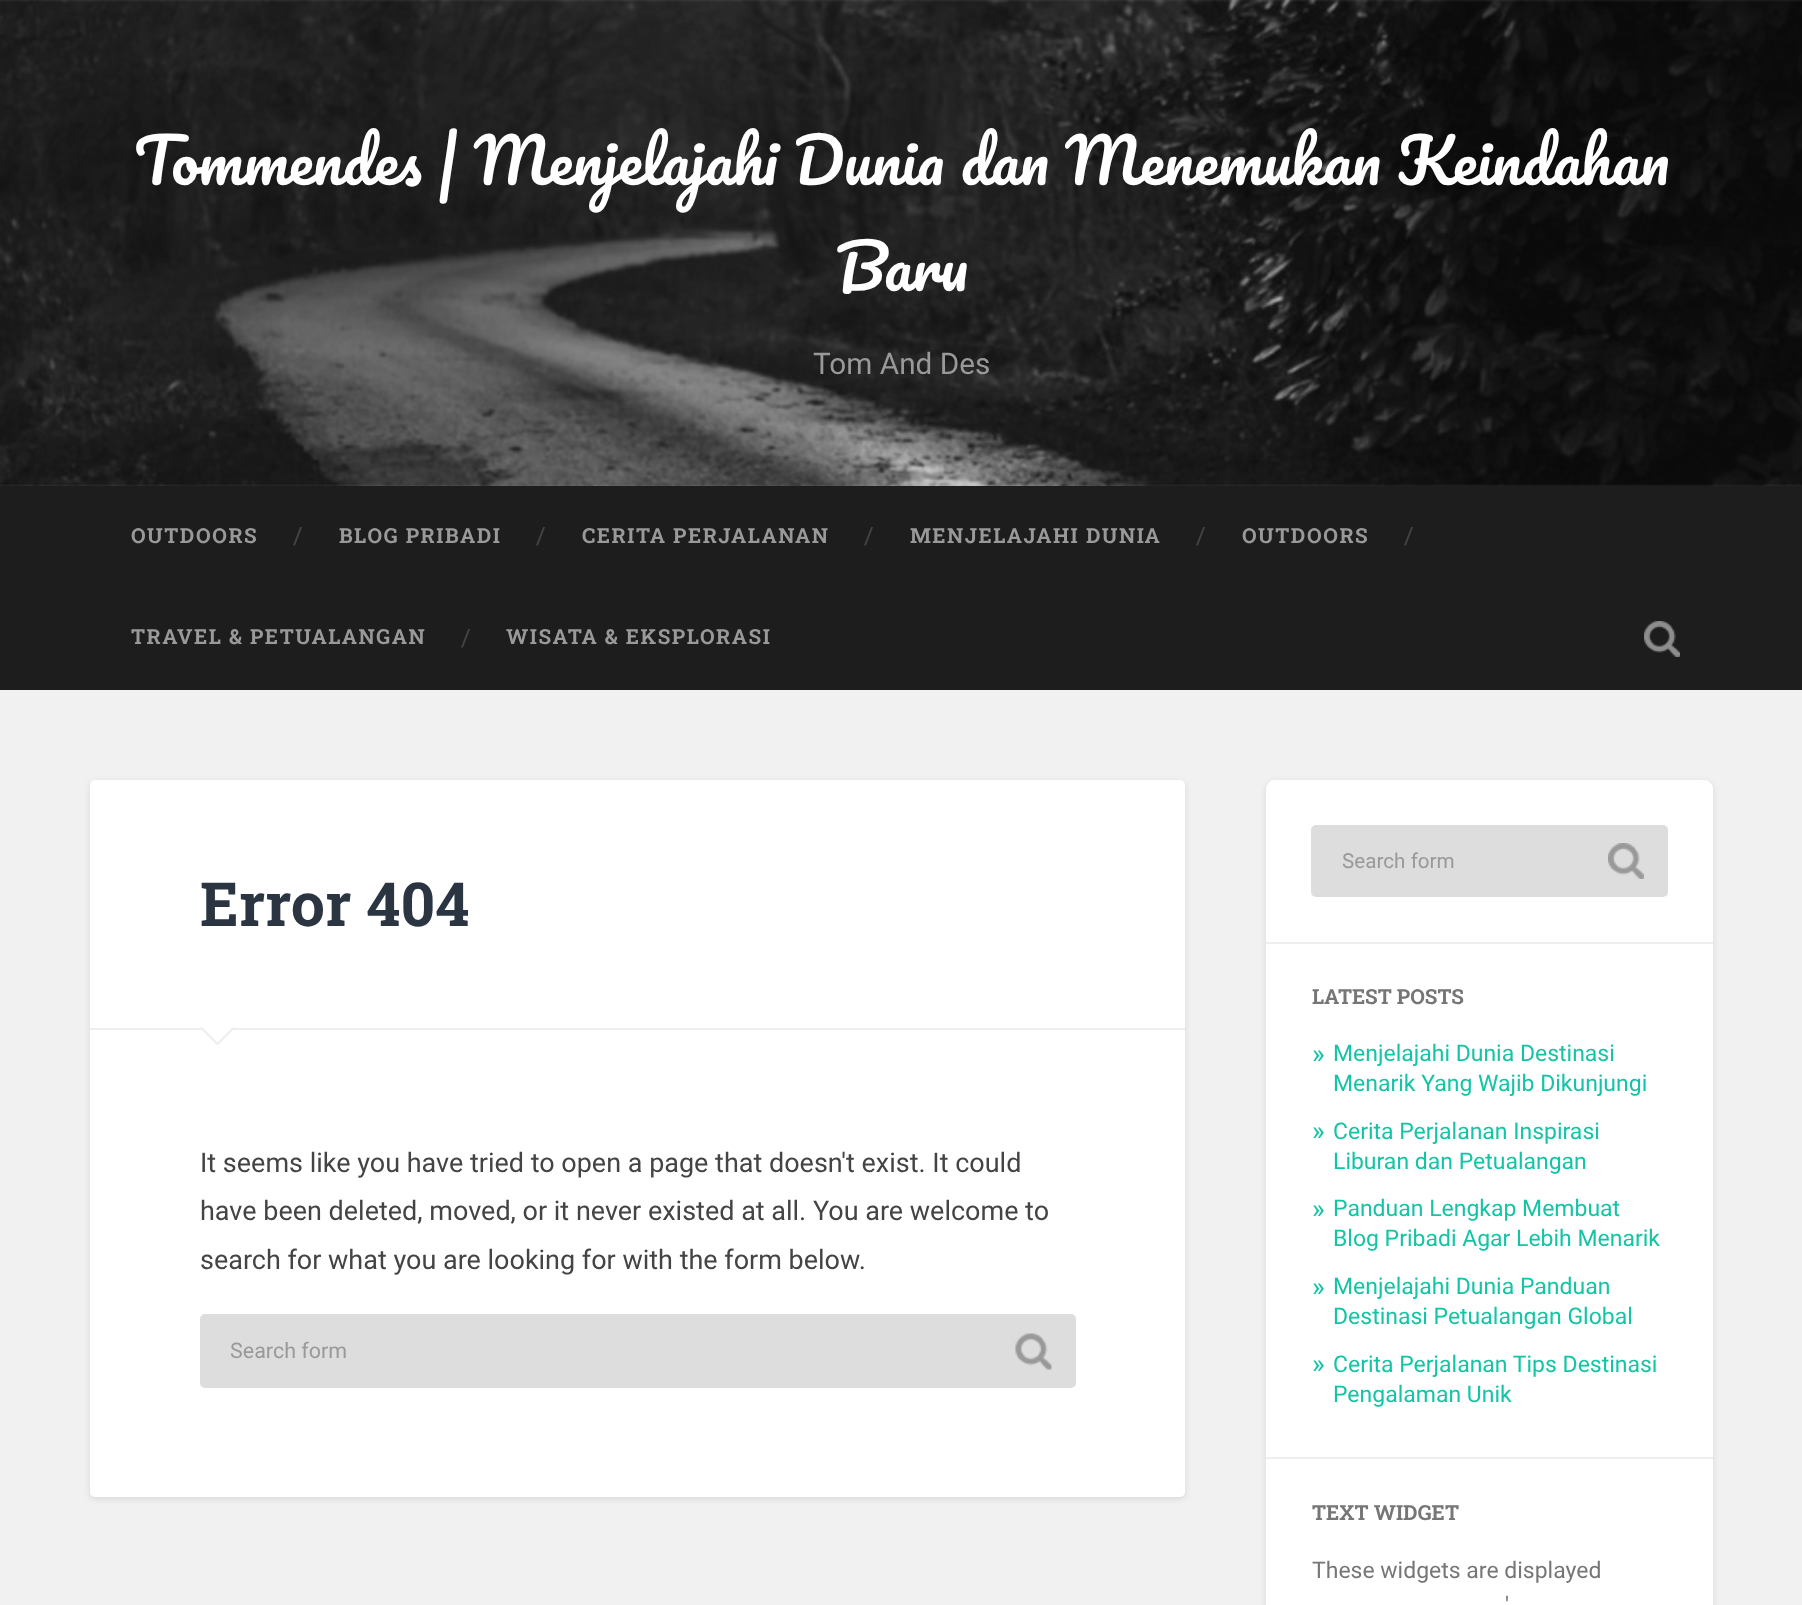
<?xml version="1.0" encoding="UTF-8"?>
<svg xmlns="http://www.w3.org/2000/svg" xmlns:xlink="http://www.w3.org/1999/xlink" width="1802" height="1605">
  <rect width="100%" height="100%" fill="#f1f1f1" />
  <image x="0" y="0" width="1802" height="486" xlink:href="image1.png" />
  <rect y="486" width="1802" height="204" fill="#1d1d1d" />
  <image x="1644" y="621" width="36" height="36" xlink:href="image2.png" />
  <rect x="90" y="782" width="1095" height="717" rx="5" fill="#000000" fill-opacity="0.1" filter="blur(3px)" />
  <rect x="90" y="780" width="1095" height="717" rx="5" fill="#ffffff" />
  <rect x="90" y="1028" width="1095" height="2" fill="#eeeeee" />
  <path d="M 199.5 1027.5 h 36 l -18 18 z" fill="#eeeeee" />
  <path d="M 201 1026 h 33 l -16.5 16.5 z" fill="#ffffff" />
  <rect x="200" y="1314" width="876" height="74" rx="5" fill="#dddddd" />
  <image x="1015" y="1333" width="37" height="37" xlink:href="image3.png" />
  <rect x="1266" y="782" width="447" height="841" rx="9" fill="#000000" fill-opacity="0.1" filter="blur(3px)" />
  <rect x="1266" y="780" width="447" height="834" rx="9" fill="#ffffff" />
  <rect x="1311" y="825" width="357" height="72" rx="5" fill="#dddddd" />
  <image x="1608" y="843" width="36" height="36" xlink:href="image4.png" />
  <rect x="1266" y="942" width="447" height="2" fill="#eeeeee" />
  <rect x="1266" y="1457" width="447" height="2" fill="#eeeeee" />
  <text x="134" y="185" style="font-family: Pacifico; font-size: 60.75px; fill: #ffffff">Tommendes | Menjelajahi Dunia dan Menemukan Keindahan</text>
  <text x="836" y="291" style="font-family: Pacifico; font-size: 60.75px; fill: #ffffff">Baru</text>
  <text x="813" y="374" style="font-family: Roboto; font-size: 29.75px; fill: #999999">Tom And Des</text>
  <text x="131" y="543" style="font-family: Roboto Slab; font-size: 20.7px; font-weight: bold; letter-spacing: 1.5px; fill: #999999">OUTDOORS</text>
  <text x="293" y="544" style="font-family: Roboto Slab; font-size: 24px; fill: #444444">/</text>
  <text x="339" y="543" style="font-family: Roboto Slab; font-size: 20.7px; font-weight: bold; letter-spacing: 1.5px; fill: #999999">BLOG PRIBADI</text>
  <text x="536" y="544" style="font-family: Roboto Slab; font-size: 24px; fill: #444444">/</text>
  <text x="582" y="543" style="font-family: Roboto Slab; font-size: 20.7px; font-weight: bold; letter-spacing: 1.5px; fill: #999999">CERITA PERJALANAN</text>
  <text x="864" y="544" style="font-family: Roboto Slab; font-size: 24px; fill: #444444">/</text>
  <text x="910" y="543" style="font-family: Roboto Slab; font-size: 20.7px; font-weight: bold; letter-spacing: 1.5px; fill: #999999">MENJELAJAHI DUNIA</text>
  <text x="1196" y="544" style="font-family: Roboto Slab; font-size: 24px; fill: #444444">/</text>
  <text x="1242" y="543" style="font-family: Roboto Slab; font-size: 20.7px; font-weight: bold; letter-spacing: 1.5px; fill: #999999">OUTDOORS</text>
  <text x="1404" y="544" style="font-family: Roboto Slab; font-size: 24px; fill: #444444">/</text>
  <text x="131" y="644" style="font-family: Roboto Slab; font-size: 20.7px; font-weight: bold; letter-spacing: 1.5px; fill: #999999">TRAVEL &amp; PETUALANGAN</text>
  <text x="461" y="646" style="font-family: Roboto Slab; font-size: 24px; fill: #444444">/</text>
  <text x="506" y="644" style="font-family: Roboto Slab; font-size: 20.7px; font-weight: bold; letter-spacing: 1.5px; fill: #999999">WISATA &amp; EKSPLORASI</text>
  <text x="200" y="926" style="font-family: Roboto Slab; font-size: 60.75px; font-weight: bold; fill: #2b3542">Error 404</text>
  <text x="200" y="1172" style="font-family: Roboto; font-size: 27px; fill: #444444">It seems like you have tried to open a page that doesn't exist. It could</text>
  <text x="200" y="1220" style="font-family: Roboto; font-size: 27px; fill: #444444">have been deleted, moved, or it never existed at all. You are welcome to</text>
  <text x="200" y="1269" style="font-family: Roboto; font-size: 27px; fill: #444444">search for what you are looking for with the form below.</text>
  <text x="230" y="1358" style="font-family: Roboto; font-size: 21.5px; fill: #999999">Search form</text>
  <text x="1342" y="868" style="font-family: Roboto; font-size: 20.7px; fill: #999999">Search form</text>
  <text x="1312" y="1004" style="font-family: Roboto Slab; font-size: 20.7px; font-weight: bold; fill: #767676">LATEST POSTS</text>
  <text x="1312" y="1063" style="font-family: Roboto; font-size: 27px; fill: #13c4a5">»</text>
  <text x="1333" y="1061" style="font-family: Roboto; font-size: 23px; fill: #13c4a5">Menjelajahi Dunia Destinasi</text>
  <text x="1333" y="1091" style="font-family: Roboto; font-size: 23px; fill: #13c4a5">Menarik Yang Wajib Dikunjungi</text>
  <text x="1312" y="1140" style="font-family: Roboto; font-size: 27px; fill: #13c4a5">»</text>
  <text x="1333" y="1139" style="font-family: Roboto; font-size: 23px; fill: #13c4a5">Cerita Perjalanan Inspirasi</text>
  <text x="1333" y="1169" style="font-family: Roboto; font-size: 23px; fill: #13c4a5">Liburan dan Petualangan</text>
  <text x="1312" y="1218" style="font-family: Roboto; font-size: 27px; fill: #13c4a5">»</text>
  <text x="1333" y="1216" style="font-family: Roboto; font-size: 23px; fill: #13c4a5">Panduan Lengkap Membuat</text>
  <text x="1333" y="1246" style="font-family: Roboto; font-size: 23px; fill: #13c4a5">Blog Pribadi Agar Lebih Menarik</text>
  <text x="1312" y="1296" style="font-family: Roboto; font-size: 27px; fill: #13c4a5">»</text>
  <text x="1333" y="1294" style="font-family: Roboto; font-size: 23px; fill: #13c4a5">Menjelajahi Dunia Panduan</text>
  <text x="1333" y="1324" style="font-family: Roboto; font-size: 23px; fill: #13c4a5">Destinasi Petualangan Global</text>
  <text x="1312" y="1373" style="font-family: Roboto; font-size: 27px; fill: #13c4a5">»</text>
  <text x="1333" y="1372" style="font-family: Roboto; font-size: 23px; fill: #13c4a5">Cerita Perjalanan Tips Destinasi</text>
  <text x="1333" y="1402" style="font-family: Roboto; font-size: 23px; fill: #13c4a5">Pengalaman Unik</text>
  <text x="1312" y="1520" style="font-family: Roboto Slab; font-size: 20.7px; font-weight: bold; fill: #767676">TEXT WIDGET</text>
  <text x="1312" y="1578" style="font-family: Roboto; font-size: 23px; fill: #767676">These widgets are displayed</text>
  <text x="1505" y="1613" style="font-family: Roboto; font-size: 23px; fill: #767676">'</text>
</svg>
